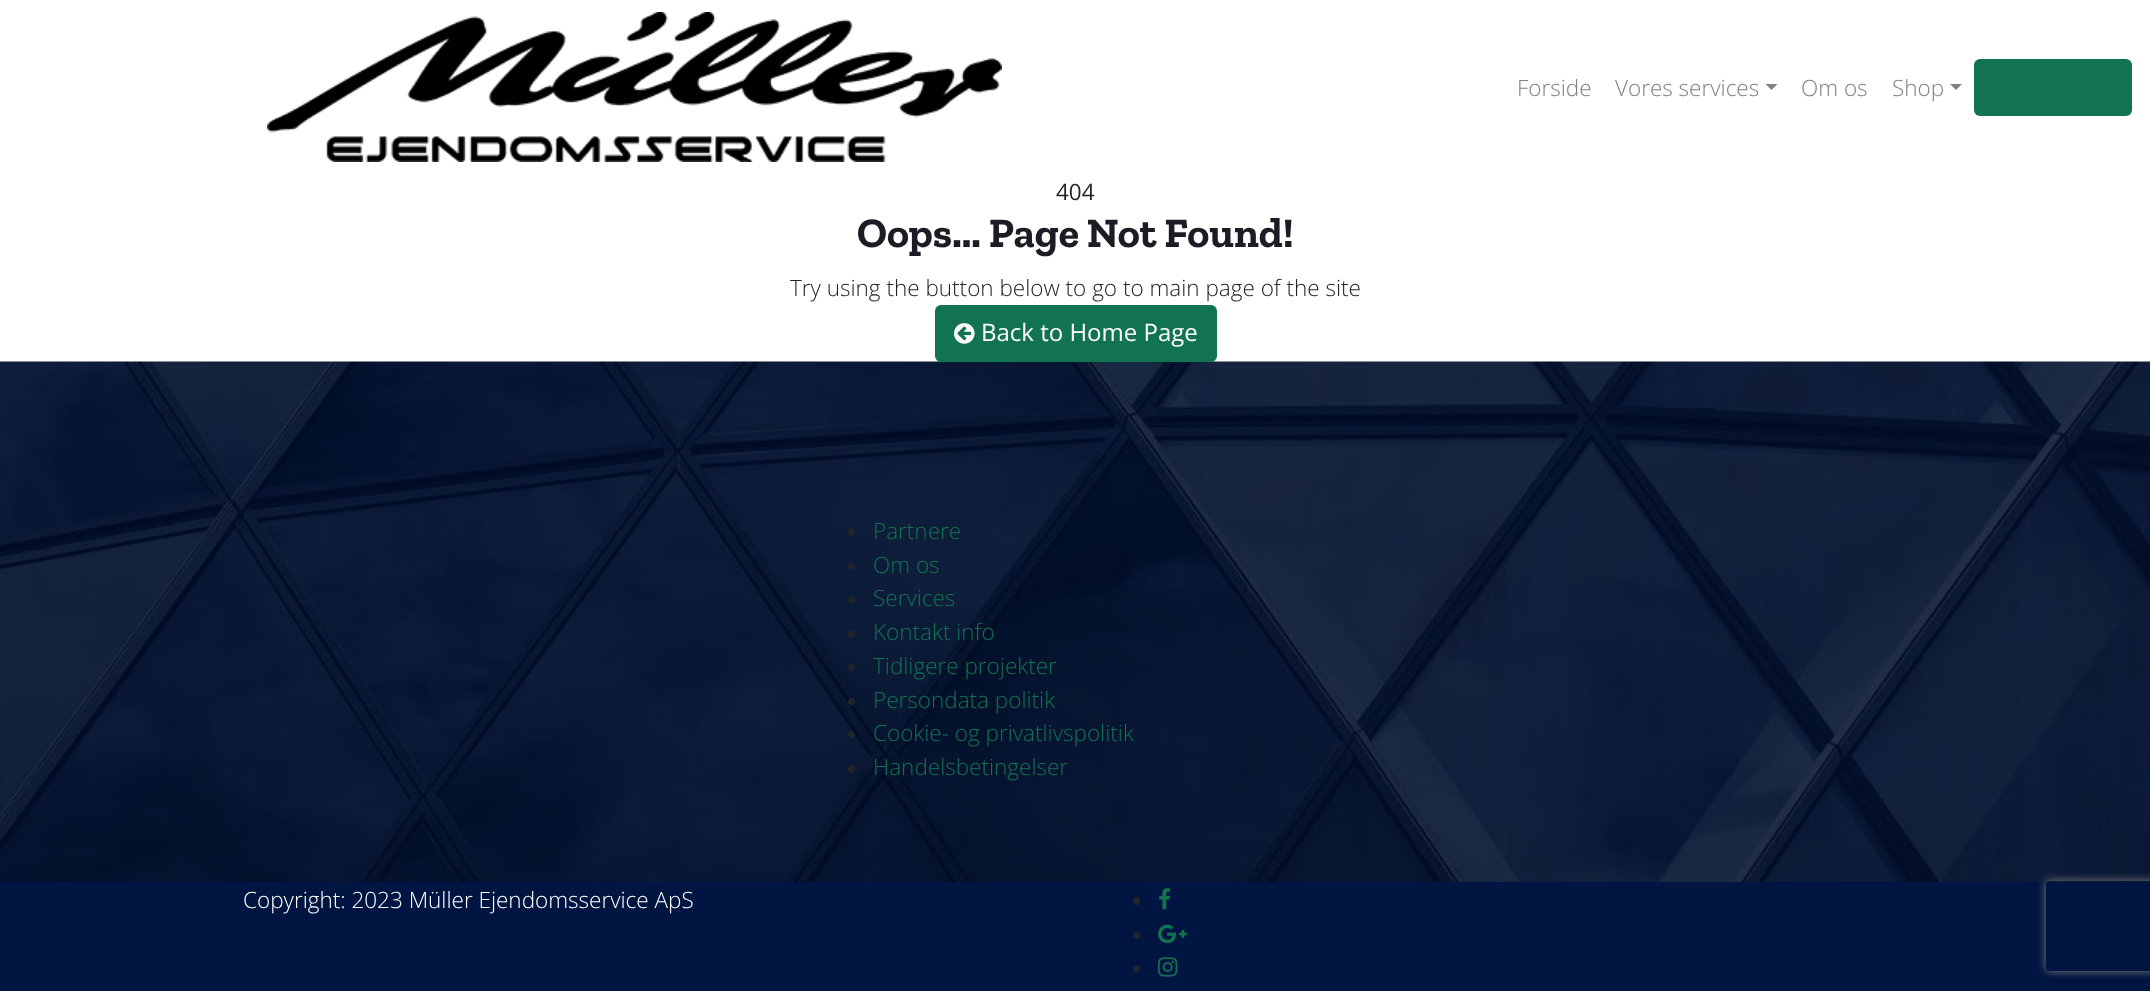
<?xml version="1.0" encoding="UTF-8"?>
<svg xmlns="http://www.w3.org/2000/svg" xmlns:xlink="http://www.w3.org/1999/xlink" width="2150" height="991">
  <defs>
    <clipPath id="clip1"><path d="M 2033 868 h 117 v 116 h -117 z m 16 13 h 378 c 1.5 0 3 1.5 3 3 v 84 c 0 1.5 -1.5 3 -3 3 h -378 c -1.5 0 -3 -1.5 -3 -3 v -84 c 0 -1.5 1.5 -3 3 -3 z" clip-rule="evenodd" /></clipPath>
  </defs>
  <rect width="100%" height="100%" fill="#ffffff" />
  <image x="267" y="12" width="735" height="150" xlink:href="image1.png" />
  <path d="M 1765.5 84 h 12 l -6 6 z" fill="#808080" />
  <path d="M 1950 84 h 12 l -6 6 z" fill="#808080" />
  <rect x="1974" y="59" width="158" height="57" rx="6" fill="#127350" />
  <image x="0" y="361" width="2150" height="521" xlink:href="image3.png" />
  <rect x="936" y="306" width="280" height="55" rx="5" fill="#127350" stroke="#127350" stroke-width="2" />
  <image x="954" y="323" width="21" height="21" xlink:href="image2.png" />
  <rect x="848" y="528" width="7" height="8" rx="3.5" fill="#212529" />
  <circle cx="851.5" cy="566.5" r="3.5" fill="#212529" />
  <circle cx="851.5" cy="599.5" r="3.5" fill="#212529" />
  <rect x="848" y="630" width="7" height="8" rx="3.5" fill="#212529" />
  <rect x="848" y="663" width="7" height="8" rx="3.5" fill="#212529" />
  <circle cx="851.5" cy="701.5" r="3.5" fill="#212529" />
  <circle cx="851.5" cy="734.5" r="3.5" fill="#212529" />
  <rect x="848" y="765" width="7" height="8" rx="3.5" fill="#212529" />
  <rect y="882" width="2150" height="109" fill="#001541" />
  <rect x="1133" y="897" width="7" height="8" rx="3.5" fill="#212529" />
  <image x="1159" y="888" width="11" height="22" xlink:href="image4.png" />
  <circle cx="1136.5" cy="935.5" r="3.5" fill="#212529" />
  <image x="1158" y="924" width="29" height="20" xlink:href="image5.png" />
  <circle cx="1136.5" cy="968.5" r="3.5" fill="#212529" />
  <image x="1158" y="957" width="20" height="20" xlink:href="image6.png" />
  <g clip-path="url(#clip1)">
    <rect x="2046" y="881" width="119" height="90" rx="3" fill="#808080" filter="blur(4px)" />
  </g>
  <text x="1517" y="96" style="font-family: Open Sans; font-size: 22.5px; font-weight: 300; fill: #808080">Forside</text>
  <text x="1615" y="96" style="font-family: Open Sans; font-size: 22.5px; font-weight: 300; fill: #808080">Vores services</text>
  <text x="1801" y="96" style="font-family: Open Sans; font-size: 22.5px; font-weight: 300; fill: #808080">Om os</text>
  <text x="1892" y="96" style="font-family: Open Sans; font-size: 22.5px; font-weight: 300; fill: #808080">Shop</text>
  <text x="1056" y="200" style="font-family: Open Sans; font-size: 22.5px; fill: #212529">404</text>
  <text x="857" y="247" style="font-family: Zilla Slab; font-size: 42px; font-weight: bold; fill: #1c1c24">Oops... Page Not Found!</text>
  <text x="790" y="296" style="font-family: Open Sans; font-size: 22.5px; font-weight: 300; fill: #212529">Try using the button below to go to main page of the site</text>
  <text x="981" y="341" style="font-family: Open Sans; font-size: 24px; fill: #ffffff">Back to Home Page</text>
  <text x="873" y="539" style="font-family: Open Sans; font-size: 22.5px; font-weight: 300; fill: #127350">Partnere</text>
  <text x="873" y="573" style="font-family: Open Sans; font-size: 22.5px; font-weight: 300; fill: #127350">Om os</text>
  <text x="873" y="606" style="font-family: Open Sans; font-size: 22.5px; font-weight: 300; fill: #127350">Services</text>
  <text x="873" y="640" style="font-family: Open Sans; font-size: 22.5px; font-weight: 300; fill: #127350">Kontakt info</text>
  <text x="873" y="674" style="font-family: Open Sans; font-size: 22.5px; font-weight: 300; fill: #127350">Tidligere projekter</text>
  <text x="873" y="708" style="font-family: Open Sans; font-size: 22.5px; font-weight: 300; fill: #127350">Persondata politik</text>
  <text x="873" y="741" style="font-family: Open Sans; font-size: 22.5px; font-weight: 300; fill: #127350">Cookie- og privatlivspolitik</text>
  <text x="873" y="775" style="font-family: Open Sans; font-size: 22.5px; font-weight: 300; fill: #127350">Handelsbetingelser</text>
  <text x="243" y="908" style="font-family: Open Sans; font-size: 22.5px; font-weight: 300; fill: #ffffff">Copyright: 2023 Müller Ejendomsservice ApS</text>
</svg>
